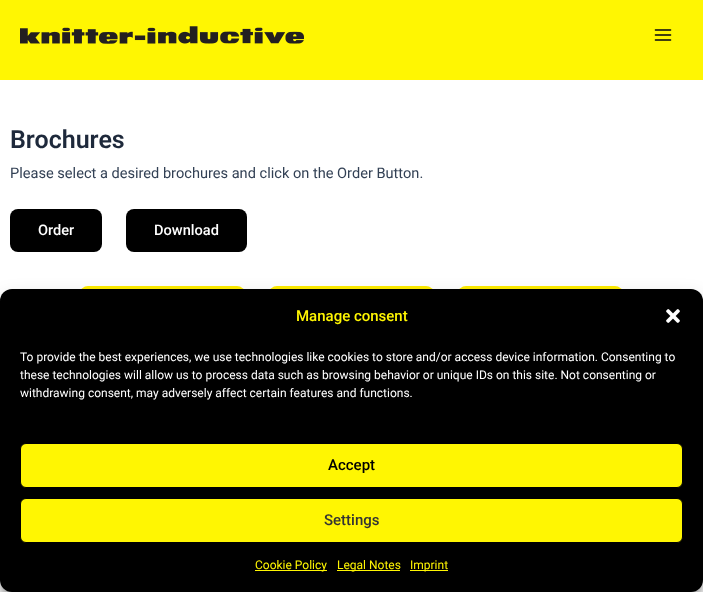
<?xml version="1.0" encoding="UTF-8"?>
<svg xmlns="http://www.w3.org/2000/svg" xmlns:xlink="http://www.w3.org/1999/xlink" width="703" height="592">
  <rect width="100%" height="100%" fill="#ffffff" />
  <rect width="703" height="80" fill="#fff602" />
  <image x="20" y="26" width="284" height="18" xlink:href="image1.png" />
  <image x="654" y="29" width="18" height="12" xlink:href="image2.png" />
  <rect x="10" y="209" width="92" height="43" rx="8" fill="#000000" />
  <rect x="126" y="209" width="121" height="43" rx="8" fill="#000000" />
  <image x="81" y="286" width="163" height="3" xlink:href="image3.png" />
  <image x="270" y="286" width="163" height="3" xlink:href="image3.png" />
  <image x="459" y="286" width="163" height="3" xlink:href="image3.png" />
  <rect y="295" width="703" height="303" rx="12" fill="#000000" fill-opacity="0.23" filter="blur(3px)" />
  <rect y="299" width="703" height="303" rx="12" fill="#000000" fill-opacity="0.19" filter="blur(10px)" />
  <rect y="289" width="703" height="303" rx="12" fill="#000000" />
  <image x="666" y="309" width="14" height="14" xlink:href="image4.png" />
  <rect x="20.5" y="443.5" width="662" height="44" rx="5.5" fill="#fff602" stroke="#000000" />
  <rect x="20.5" y="498.5" width="662" height="44" rx="5.5" fill="#fff602" stroke="#000000" />
  <rect x="255" y="570" width="72" height="1" fill="#fff602" />
  <rect x="337" y="570" width="63" height="1" fill="#fff602" />
  <rect x="410" y="570" width="38" height="1" fill="#fff602" />
  <text x="10" y="148" style="font-family: Roboto; font-size: 25px; font-weight: 600; fill: #1e293b">Brochures</text>
  <text x="10" y="178" style="font-family: Roboto; font-size: 14.6px; fill: #334155">Please select a desired brochures and click on the Order Button.</text>
  <text x="38" y="235" style="font-family: Roboto; font-size: 14.6px; font-weight: 500; fill: #ffffff">Order</text>
  <text x="154" y="235" style="font-family: Roboto; font-size: 14.6px; font-weight: 500; fill: #ffffff">Download</text>
  <text x="296" y="321" style="font-family: Roboto; font-size: 15px; font-weight: 500; fill: #fff602">Manage consent</text>
  <text x="20" y="361" style="font-family: Roboto; font-size: 12px; fill: #ffffff">To provide the best experiences, we use technologies like cookies to store and/or access device information. Consenting to</text>
  <text x="20" y="379" style="font-family: Roboto; font-size: 12px; fill: #ffffff">these technologies will allow us to process data such as browsing behavior or unique IDs on this site. Not consenting or</text>
  <text x="20" y="397" style="font-family: Roboto; font-size: 12px; fill: #ffffff">withdrawing consent, may adversely affect certain features and functions.</text>
  <text x="328" y="470" style="font-family: Roboto; font-size: 15px; font-weight: 500; fill: #000000">Accept</text>
  <text x="324" y="525" style="font-family: Roboto; font-size: 15px; font-weight: 500; fill: #333333">Settings</text>
  <text x="255" y="569" style="font-family: Roboto; font-size: 12px; fill: #fff602">Cookie Policy</text>
  <text x="337" y="569" style="font-family: Roboto; font-size: 12px; fill: #fff602">Legal Notes</text>
  <text x="410" y="569" style="font-family: Roboto; font-size: 12px; fill: #fff602">Imprint</text>
</svg>
